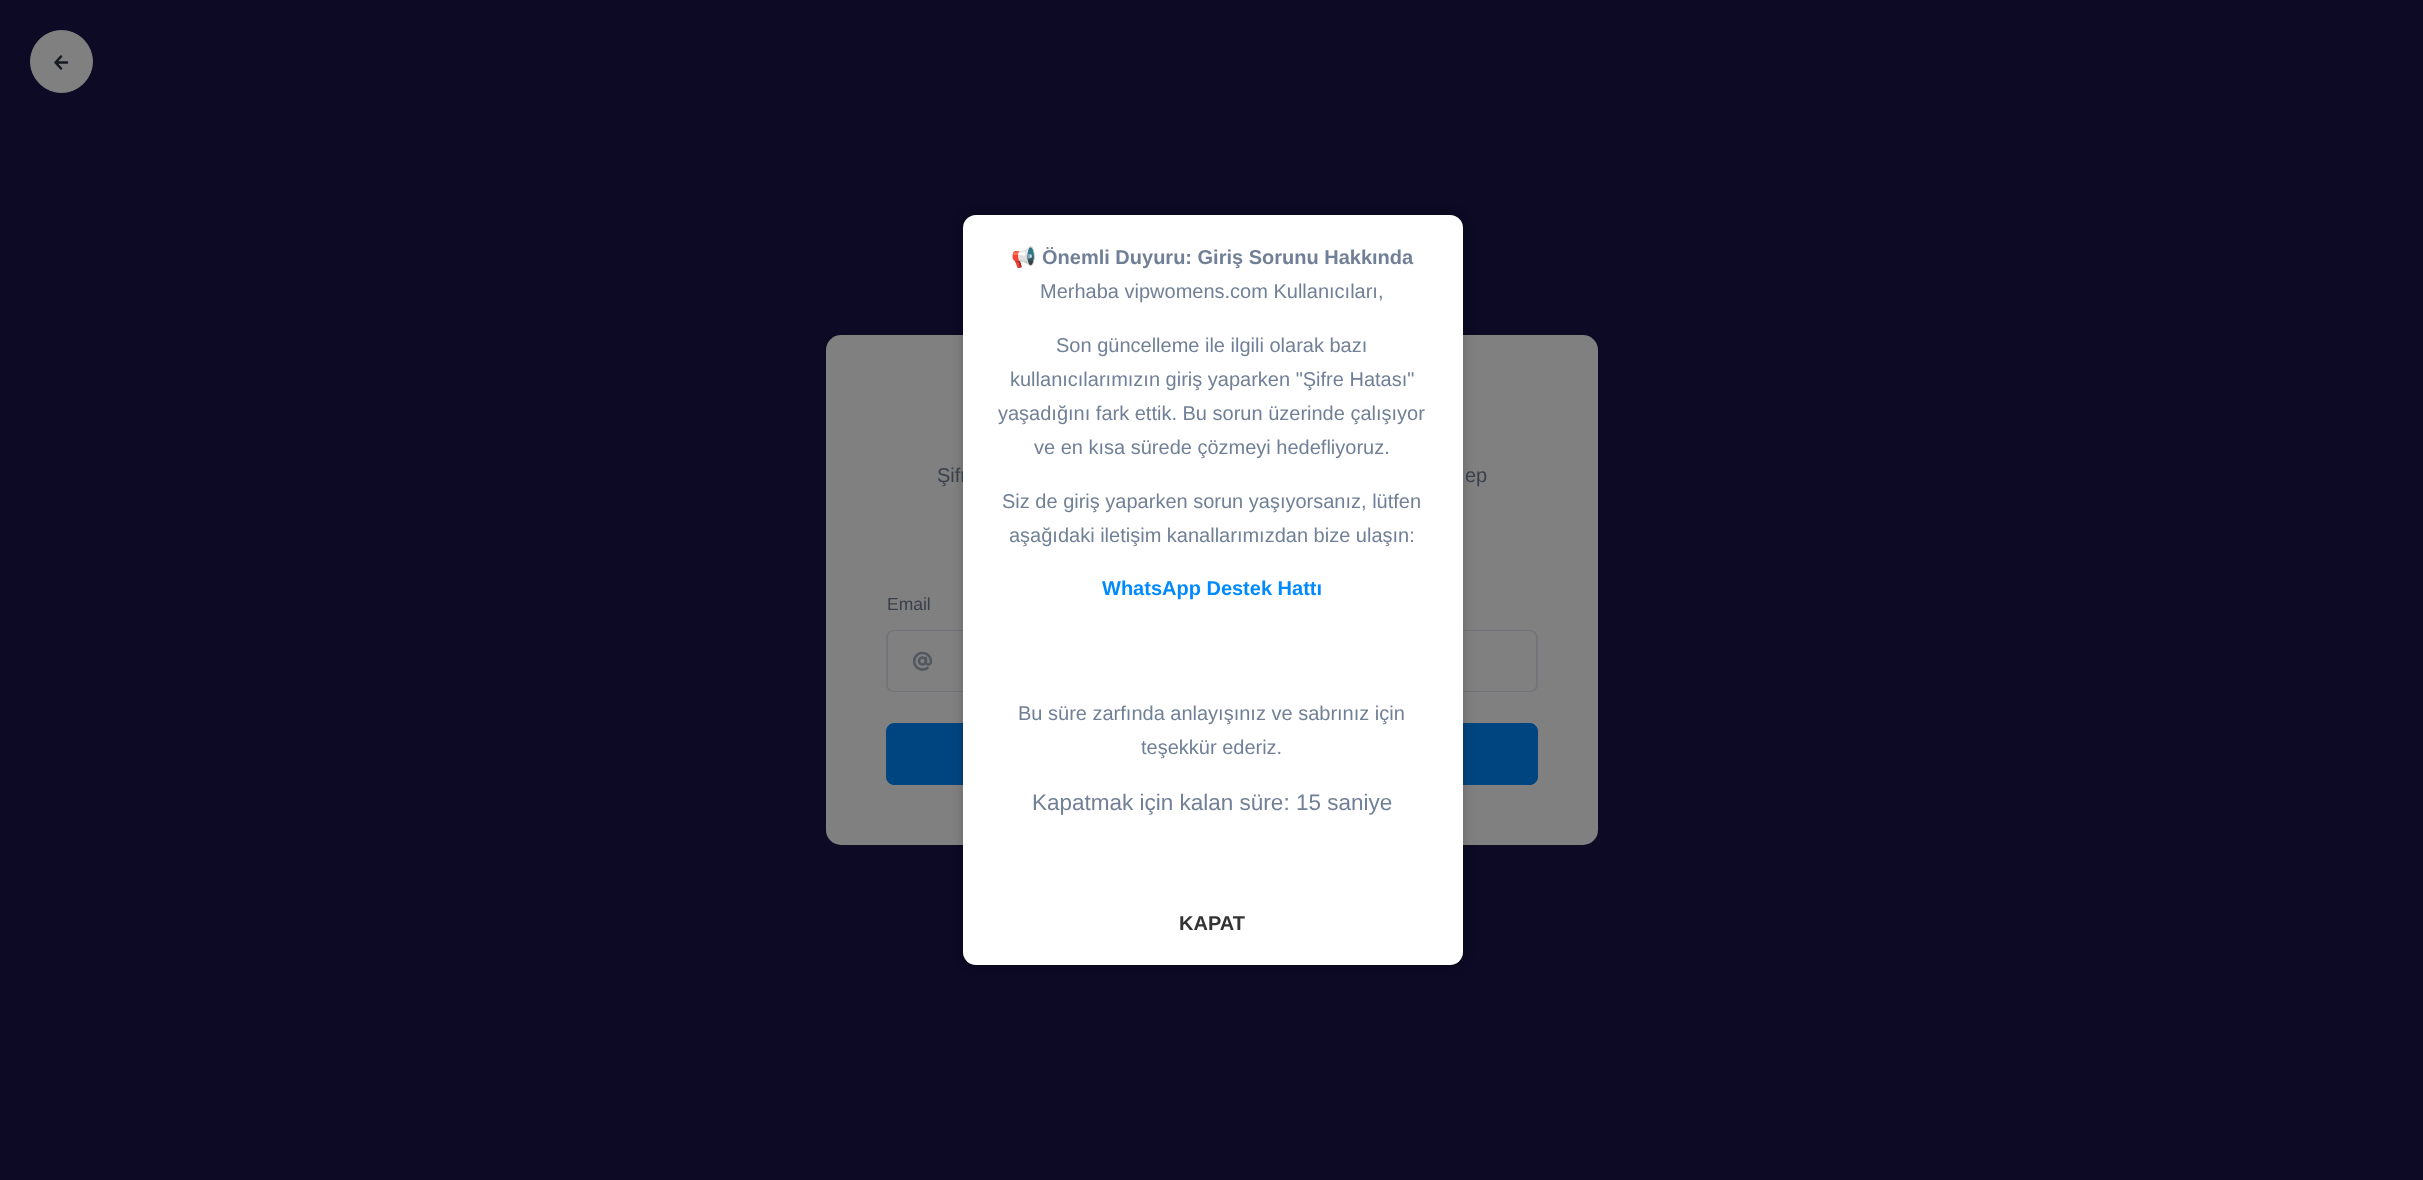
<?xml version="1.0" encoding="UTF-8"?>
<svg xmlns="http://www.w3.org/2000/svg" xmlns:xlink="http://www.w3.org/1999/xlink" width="2423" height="1180">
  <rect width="100%" height="100%" fill="#0c0a24" />
  <circle cx="61.5" cy="61.5" r="31" fill="#808080" stroke="#808080" />
  <path d="M 67 62.5 h -11.5 m 5.5 6 l -5.5 -6 l 5.5 -6" fill="none" stroke="#141a22" stroke-width="2.5" stroke-linecap="round" stroke-linejoin="round" />
  <rect x="826" y="335" width="772" height="510" rx="15" fill="#808080" />
  <path d="M 894 630 h 64 v 62 h -64 c -4 0 -8 -3 -8 -7 v -47 c 0 -5 4 -8 8 -8 z m 0 1 h 64 v 60 h -64 c -4 0 -6 -3 -6 -6 v -47 c 0 -4 2 -7 6 -7 z" fill="#717478" fill-rule="evenodd" />
  <path d="M 956 630 h 574 c 4 0 8 3 8 8 v 47 c 0 4 -4 7 -8 7 h -574 z m 0 1 h 574 c 3 0 6 3 6 7 v 47 c 0 3 -3 6 -6 6 h -574 z" fill="#717478" fill-rule="evenodd" />
  <rect x="886.5" y="723.5" width="651" height="61" rx="7.5" fill="#004580" stroke="#004580" />
  <rect x="963" y="215" width="500" height="750" rx="13" fill="#000000" fill-opacity="0.2" filter="blur(6px)" />
  <image x="913" y="651" width="20" height="20" xlink:href="image1.png" />
  <text x="937" y="482" style="font-family: Liberation Sans; font-size: 20px; fill: #39404b">Şifr</text>
  <rect x="963" y="215" width="500" height="750" rx="13" fill="#ffffff" />
  <text x="1179" y="930" style="font-family: Liberation Sans; font-size: 20px; font-weight: bold; fill: #333333">KAPAT</text>
  <text x="1032" y="810" style="font-family: Liberation Sans; font-size: 22.5px; fill: #718096">Kapatmak için kalan süre: 15 saniye</text>
  <text x="1141" y="754" style="font-family: Liberation Sans; font-size: 20px; fill: #718096">teşekkür ederiz.</text>
  <text x="1018" y="720" style="font-family: Liberation Sans; font-size: 20px; fill: #718096">Bu süre zarfında anlayışınız ve sabrınız için</text>
  <text x="1102" y="595" style="font-family: Liberation Sans; font-size: 20px; font-weight: bold; fill: #008aff">WhatsApp Destek Hattı</text>
  <text x="1009" y="542" style="font-family: Liberation Sans; font-size: 20px; fill: #718096">aşağıdaki iletişim kanallarımızdan bize ulaşın:</text>
  <text x="1002" y="508" style="font-family: Liberation Sans; font-size: 20px; fill: #718096">Siz de giriş yaparken sorun yaşıyorsanız, lütfen</text>
  <text x="1034" y="454" style="font-family: Liberation Sans; font-size: 20px; fill: #718096">ve en kısa sürede çözmeyi hedefliyoruz.</text>
  <text x="998" y="420" style="font-family: Liberation Sans; font-size: 20px; fill: #718096">yaşadığını fark ettik. Bu sorun üzerinde çalışıyor</text>
  <text x="1010" y="386" style="font-family: Liberation Sans; font-size: 20px; fill: #718096">kullanıcılarımızın giriş yaparken "Şifre Hatası"</text>
  <text x="1056" y="352" style="font-family: Liberation Sans; font-size: 20px; fill: #718096">Son güncelleme ile ilgili olarak bazı</text>
  <text x="1040" y="298" style="font-family: Liberation Sans; font-size: 20px; fill: #718096">Merhaba vipwomens.com Kullanıcıları,</text>
  <text x="1042" y="264" style="font-family: Liberation Sans; font-size: 20px; font-weight: bold; fill: #718096">Önemli Duyuru: Giriş Sorunu Hakkında</text>
  <text x="1011" y="264" style="font-family: Noto Color Emoji; font-size: 20px; font-weight: bold; fill: #718096">📢</text>
  <text x="1465" y="482" style="font-family: Liberation Sans; font-size: 20px; fill: #39404b">ep</text>
  <text x="887" y="610" style="font-family: Liberation Sans; font-size: 17.5px; fill: #39404b">Email</text>
</svg>
